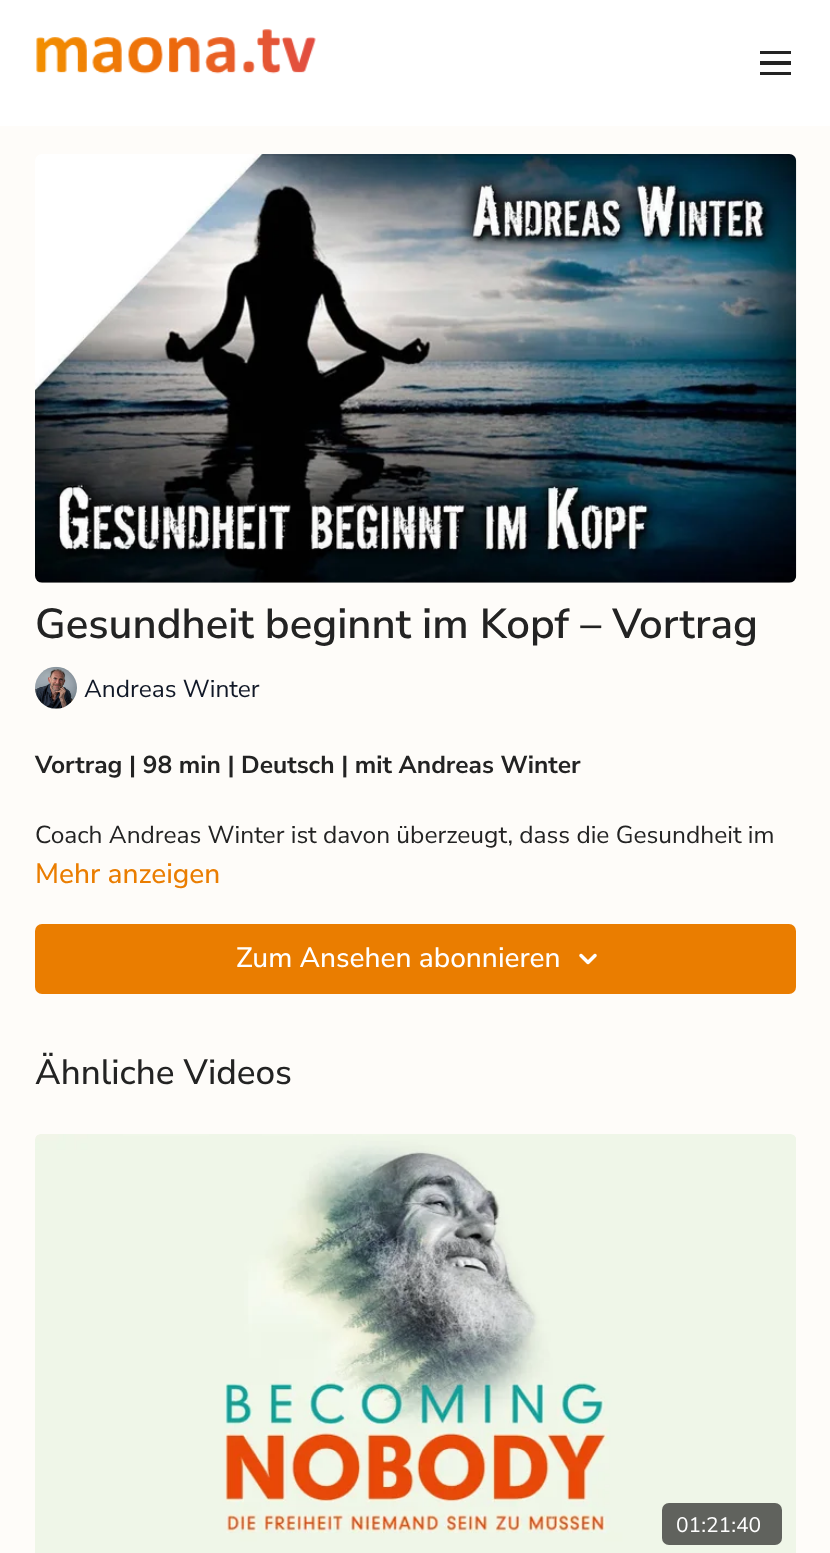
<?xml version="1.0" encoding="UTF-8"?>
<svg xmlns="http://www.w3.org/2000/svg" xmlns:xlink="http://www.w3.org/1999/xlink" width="830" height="1553">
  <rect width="100%" height="100%" fill="#fefcf9" />
  <rect width="830" height="126" fill="#ffffff" />
  <image x="36" y="29" width="280" height="45" xlink:href="image1.png" />
  <rect x="760" y="51" width="31" height="3" fill="#232323" />
  <rect x="760" y="61" width="31" height="4" fill="#232323" />
  <rect x="760" y="72" width="31" height="3" fill="#232323" />
  <image x="35" y="154" width="762" height="429" xlink:href="image2.png" />
  <image x="35" y="666" width="42" height="43" xlink:href="image3.png" />
  <rect x="35" y="924" width="761" height="70" rx="7" fill="#ea7d00" />
  <image x="579" y="953" width="18" height="12" xlink:href="image4.png" />
  <image x="35" y="1134" width="761" height="419" xlink:href="image5.png" />
  <rect x="662" y="1503" width="120" height="42" rx="7" fill="#60625d" />
  <text x="35" y="638" style="font-family: Nunito Sans; font-size: 42px; font-weight: 600; fill: #232323">Gesundheit beginnt im Kopf – Vortrag</text>
  <text x="84" y="697" style="font-family: Nunito Sans; font-size: 24.5px; fill: #111827">Andreas Winter</text>
  <text x="35" y="773" style="font-family: Nunito Sans; font-size: 24.5px; font-weight: bold; fill: #232323">Vortrag | 98 min | Deutsch | mit Andreas Winter</text>
  <text x="35" y="843" style="font-family: Nunito Sans; font-size: 24.5px; fill: #232323">Coach Andreas Winter ist davon überzeugt, dass die Gesundheit im</text>
  <text x="35" y="883" style="font-family: Nunito Sans; font-size: 28px; font-weight: 500; fill: #ea7d00">Mehr anzeigen</text>
  <text x="236" y="967" style="font-family: Nunito Sans; font-size: 28px; font-weight: 500; fill: #ffffff">Zum Ansehen abonnieren</text>
  <text x="35" y="1084" style="font-family: Nunito Sans; font-size: 35px; font-weight: 500; fill: #232323">Ähnliche Videos</text>
  <text x="676" y="1532" style="font-family: Nunito Sans; font-size: 21px; fill: #ffffff">01:21:40</text>
</svg>
